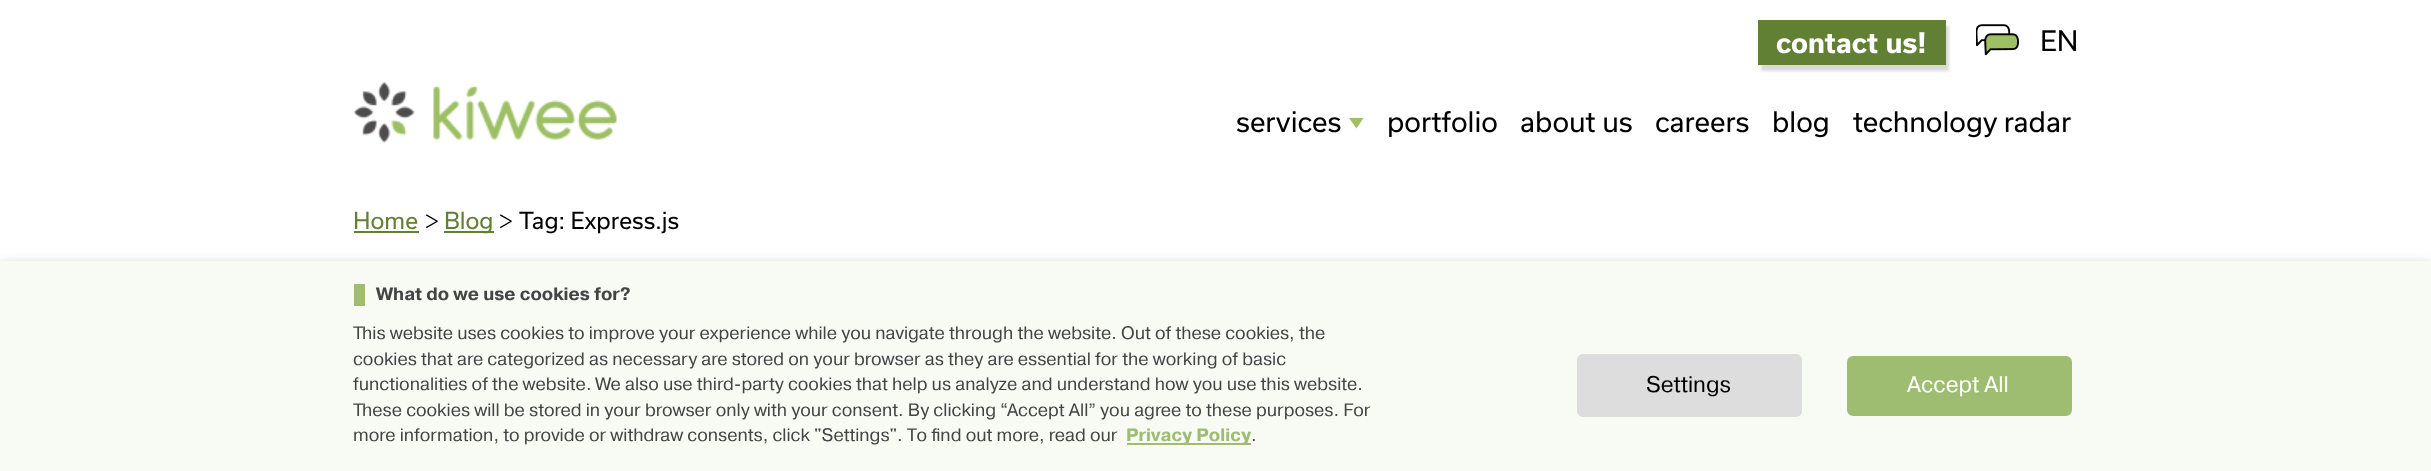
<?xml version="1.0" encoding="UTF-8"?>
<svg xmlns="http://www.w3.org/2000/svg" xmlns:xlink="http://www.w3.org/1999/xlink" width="2431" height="471">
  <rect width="100%" height="100%" fill="#ffffff" />
  <rect x="1761" y="26" width="188" height="45" fill="#000000" fill-opacity="0.15" filter="blur(1.5px)" />
  <rect x="1758" y="20" width="188" height="45" fill="#618034" />
  <image x="1976" y="24" width="43" height="32" xlink:href="image1.png" />
  <image x="353" y="82" width="264" height="61" xlink:href="image2.png" />
  <path d="M 1363.5 118 l -7 10.5 l -7.5 -10.5 z" fill="#9ec065" />
  <rect x="354" y="231" width="65" height="2" fill="#618034" />
  <rect x="444" y="231" width="50" height="2" fill="#618034" />
  <rect y="269" width="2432" height="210" fill="#000000" fill-opacity="0.5" filter="blur(7.5px)" />
  <rect y="261" width="2431" height="210" fill="#f8faf4" />
  <rect x="354" y="284" width="11" height="22" fill="#9ebd71" />
  <rect x="1127" y="443" width="124" height="2" fill="#9ebd71" />
  <rect x="1579.5" y="356.5" width="220" height="58" rx="3.5" fill="#dddddd" stroke="#dddddd" stroke-width="5" />
  <rect x="1849.5" y="358.5" width="220" height="55" rx="3.5" fill="#9ebd71" stroke="#9ebd71" stroke-width="5" />
  <text x="1776" y="53" style="font-family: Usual; font-size: 27px; font-weight: bold; fill: #ffffff">contact us!</text>
  <text x="2040" y="51" style="font-family: Usual; font-size: 27px; fill: #000000">EN</text>
  <text x="1236" y="132" style="font-family: Usual; font-size: 27px; fill: #000000">services</text>
  <text x="1387" y="132" style="font-family: Usual; font-size: 27px; fill: #000000">portfolio</text>
  <text x="1520" y="132" style="font-family: Usual; font-size: 27px; fill: #000000">about us</text>
  <text x="1655" y="132" style="font-family: Usual; font-size: 27px; fill: #000000">careers</text>
  <text x="1772" y="132" style="font-family: Usual; font-size: 27px; fill: #000000">blog</text>
  <text x="1853" y="132" style="font-family: Usual; font-size: 27px; fill: #000000">technology radar</text>
  <text x="353" y="229" style="font-family: Usual; font-size: 22.5px; fill: #618034">Home</text>
  <text x="424" y="229" style="font-family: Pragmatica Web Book; font-size: 22.5px; fill: #000000">&gt;</text>
  <text x="444" y="229" style="font-family: Usual; font-size: 22.5px; fill: #618034">Blog</text>
  <text x="498" y="229" style="font-family: Pragmatica Web Book; font-size: 22.5px; fill: #000000">&gt;</text>
  <text x="519" y="229" style="font-family: Usual; font-size: 22.5px; fill: #000000">Tag: Express.js</text>
  <text x="376" y="300" style="font-family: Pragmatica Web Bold; font-size: 18px; font-weight: bold; fill: #444444">What do we use cookies for?</text>
  <text x="353" y="339" style="font-family: Pragmatica Web Book; font-size: 18px; fill: #444444">This website uses cookies to improve your experience while you navigate through the website. Out of these cookies, the</text>
  <text x="353" y="365" style="font-family: Pragmatica Web Book; font-size: 18px; fill: #444444">cookies that are categorized as necessary are stored on your browser as they are essential for the working of basic</text>
  <text x="353" y="390" style="font-family: Pragmatica Web Book; font-size: 18px; fill: #444444">functionalities of the website. We also use third-party cookies that help us analyze and understand how you use this website.</text>
  <text x="353" y="416" style="font-family: Pragmatica Web Book; font-size: 18px; fill: #444444">These cookies will be stored in your browser only with your consent. By clicking “Accept All” you agree to these purposes. For</text>
  <text x="353" y="441" style="font-family: Pragmatica Web Book; font-size: 18px; fill: #444444">more information, to provide or withdraw consents, click "Settings". To find out more, read our</text>
  <text x="1126" y="441" style="font-family: Pragmatica Web Bold; font-size: 18px; font-weight: bold; fill: #9ebd71">Privacy Policy</text>
  <text x="1251" y="441" style="font-family: Pragmatica Web Book; font-size: 18px; fill: #444444">.</text>
  <text x="1646" y="392" style="font-family: Pragmatica Web Book; font-size: 22.5px; fill: #000000">Settings</text>
  <text x="1907" y="392" style="font-family: Pragmatica Web Book; font-size: 22.5px; fill: #ffffff">Accept All</text>
</svg>
